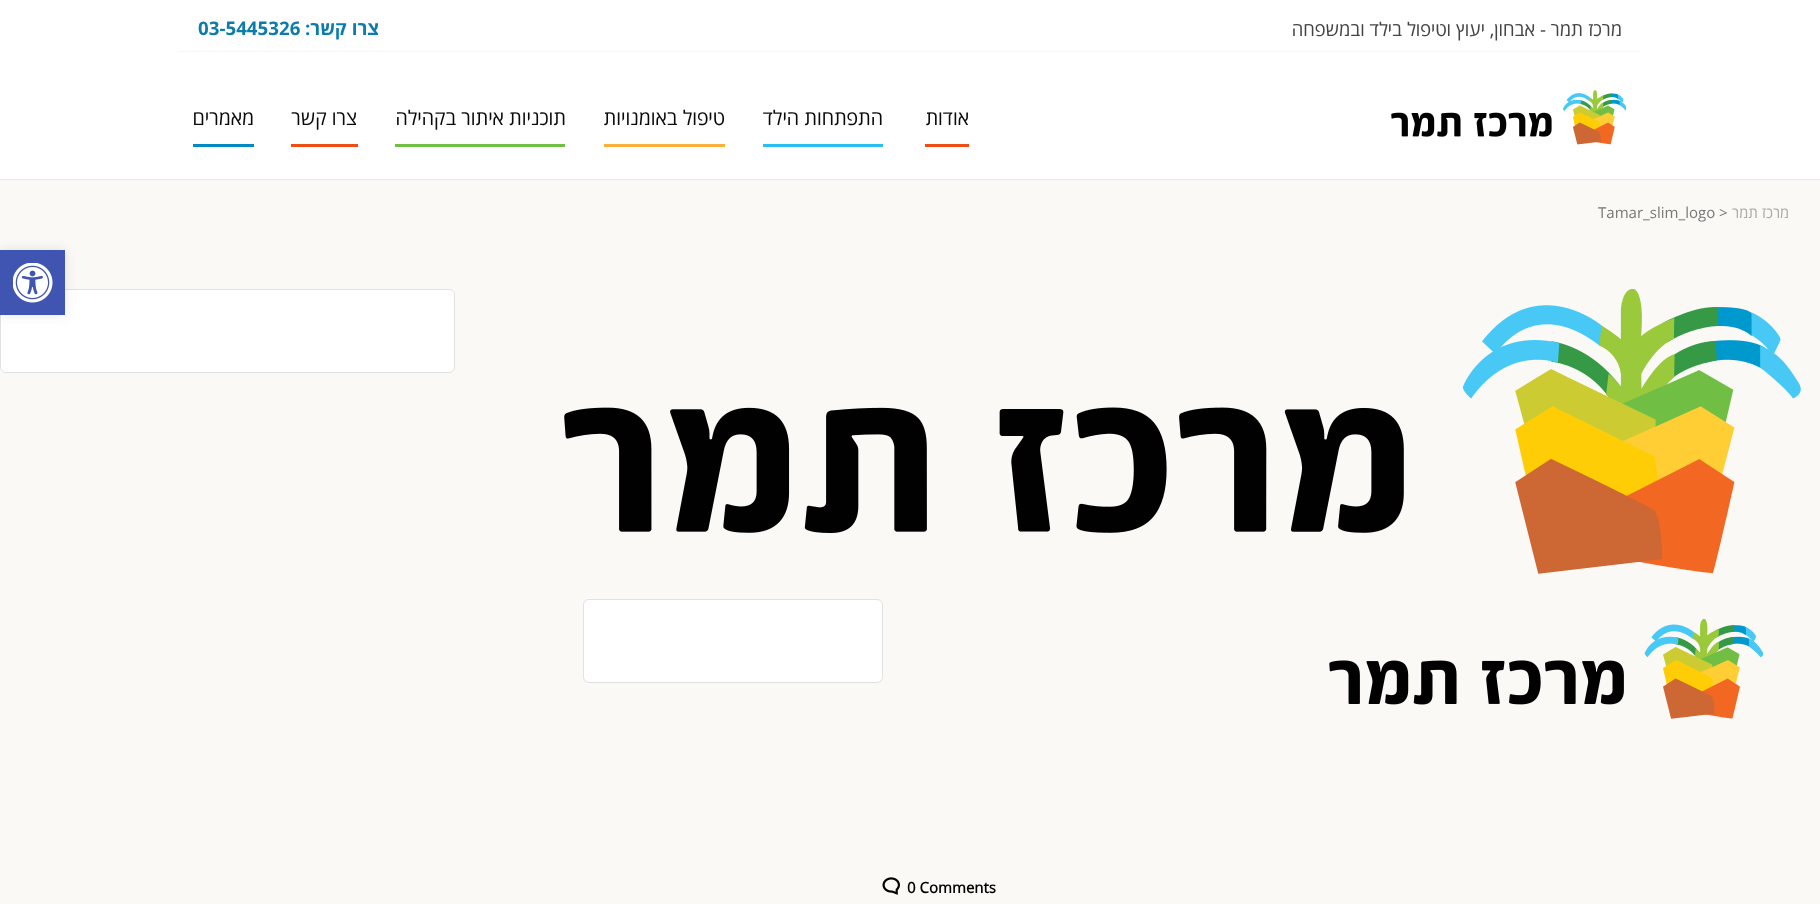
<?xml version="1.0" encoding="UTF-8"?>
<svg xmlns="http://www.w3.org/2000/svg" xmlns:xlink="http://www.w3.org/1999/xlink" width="1820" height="904">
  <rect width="100%" height="100%" fill="#fbf9f6" />
  <rect width="1820" height="179" fill="#ffffff" />
  <rect x="179" y="51" width="1462" height="1" fill="#f7f7f7" />
  <rect y="179" width="1820" height="1" fill="#eaeaea" />
  <image x="1391" y="90" width="235" height="55" xlink:href="image1.png" />
  <rect x="925" y="144" width="44" height="3" fill="#ee4e14" />
  <rect x="763" y="144" width="120" height="3" fill="#2bbef3" />
  <rect x="604" y="144" width="121" height="3" fill="#fbb03b" />
  <rect x="395" y="144" width="170" height="3" fill="#70bf44" />
  <rect x="291" y="144" width="67" height="3" fill="#ee4e14" />
  <rect x="193" y="144" width="61" height="3" fill="#0089c3" />
  <rect x="0.5" y="289.5" width="454" height="83" rx="5.5" fill="#ffffff" stroke="#e1e1e1" />
  <image x="564" y="289" width="1237" height="285" xlink:href="image2.png" />
  <rect x="583.5" y="599.5" width="299" height="83" rx="5.5" fill="#ffffff" stroke="#e1e1e1" />
  <image x="1329" y="619" width="435" height="100" xlink:href="image3.png" />
  <image x="882" y="877" width="18" height="18" xlink:href="image4.png" />
  <rect y="250" width="65" height="65" fill="#000000" fill-opacity="0.1" filter="blur(6px)" />
  <rect y="250" width="65" height="65" fill="#4054b2" />
  <image x="13" y="263" width="40" height="40" xlink:href="image5.png" />
  <text x="1622" y="36" style="font-family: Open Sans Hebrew; font-size: 18.75px; direction: rtl; fill: #444444">מרכז תמר - אבחון, יעוץ וטיפול בילד ובמשפחה</text>
  <text x="379" y="35" style="font-family: 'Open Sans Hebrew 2'; font-size: 18.75px; font-weight: bold; direction: rtl; fill: #0c7cac">צרו קשר:</text>
  <text x="198" y="35" style="font-family: 'Open Sans Hebrew 2'; font-size: 18.75px; font-weight: bold; fill: #0c7cac">03-5445326</text>
  <text x="969" y="125" style="font-family: Open Sans Hebrew; font-size: 20px; direction: rtl; fill: #0a0a0a">אודות</text>
  <text x="883" y="125" style="font-family: Open Sans Hebrew; font-size: 20px; direction: rtl; fill: #0a0a0a">התפתחות הילד</text>
  <text x="725" y="125" style="font-family: Open Sans Hebrew; font-size: 20px; direction: rtl; fill: #0a0a0a">טיפול באומנויות</text>
  <text x="566" y="125" style="font-family: Open Sans Hebrew; font-size: 20px; direction: rtl; fill: #0a0a0a">תוכניות איתור בקהילה</text>
  <text x="357" y="125" style="font-family: Open Sans Hebrew; font-size: 20px; direction: rtl; fill: #0a0a0a">צרו קשר</text>
  <text x="254" y="125" style="font-family: Open Sans Hebrew; font-size: 20px; direction: rtl; fill: #0a0a0a">מאמרים</text>
  <text x="1789" y="218" style="font-family: Open Sans Hebrew; font-size: 15px; direction: rtl; fill: #aaaaaa">מרכז תמר</text>
  <text x="1719" y="218" style="font-family: Open Sans Hebrew; font-size: 15px; fill: #777777">&gt;</text>
  <text x="1598" y="218" style="font-family: Open Sans Hebrew; font-size: 15px; fill: #777777">Tamar_slim_logo</text>
  <text x="907" y="893" style="font-family: Open Sans Hebrew; font-size: 15px; font-weight: bold; fill: #000000">0 Comments</text>
</svg>
